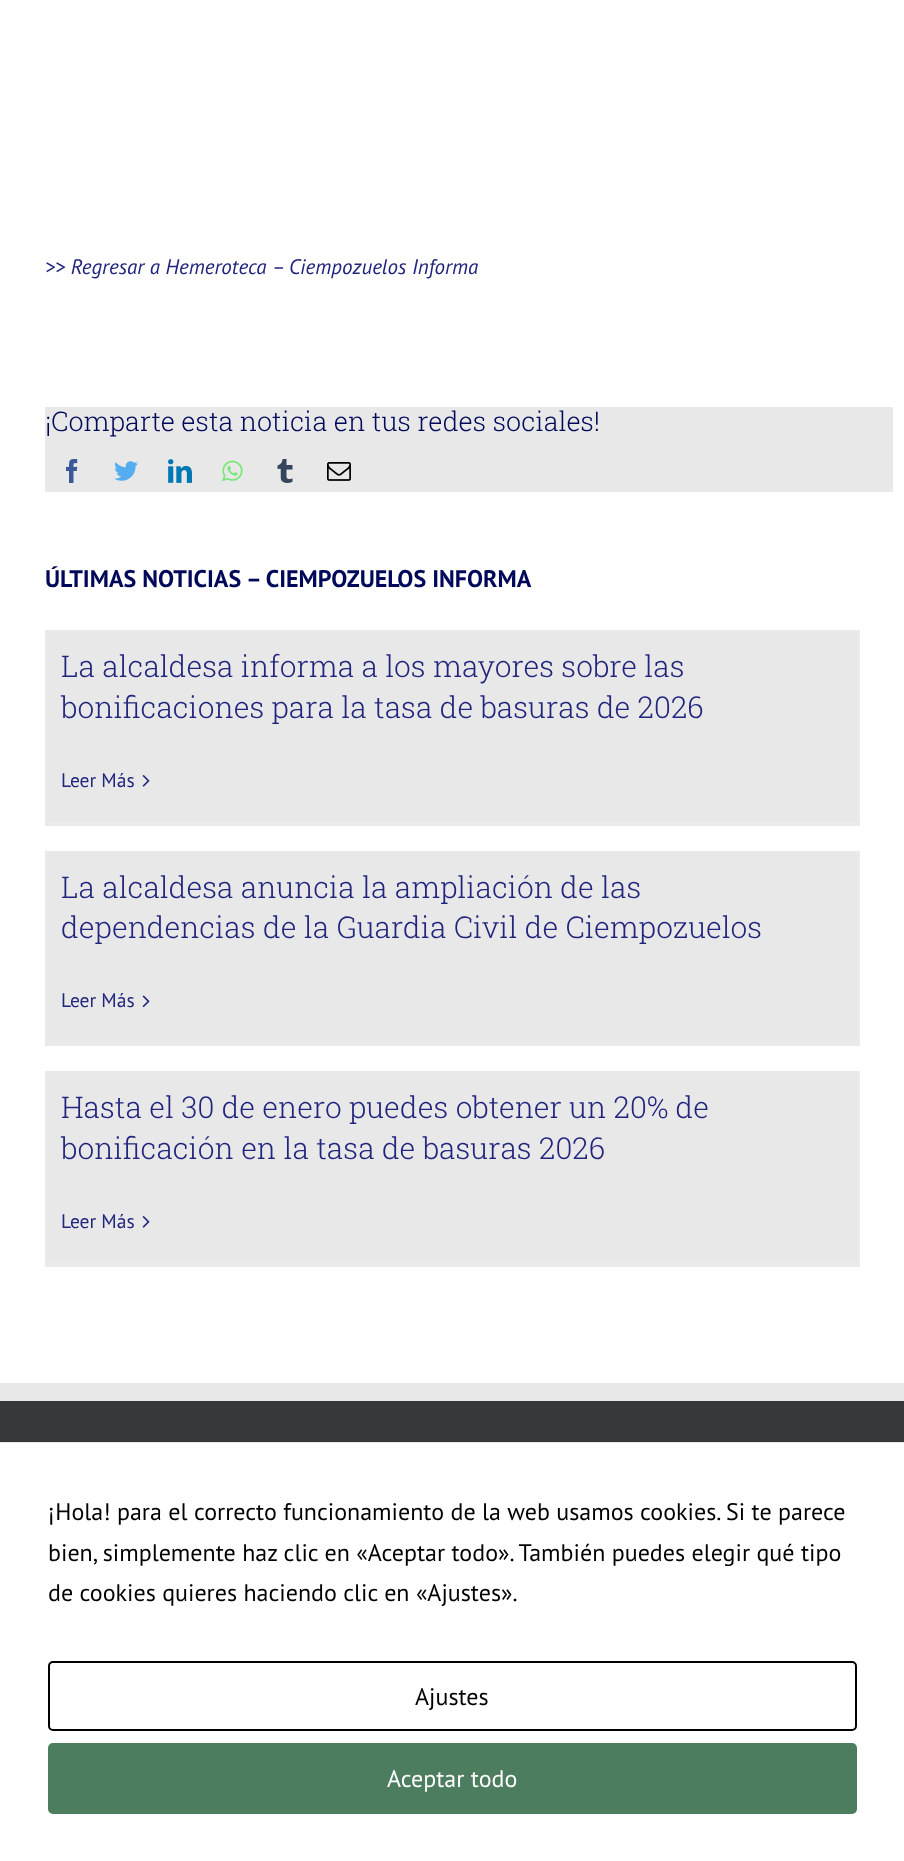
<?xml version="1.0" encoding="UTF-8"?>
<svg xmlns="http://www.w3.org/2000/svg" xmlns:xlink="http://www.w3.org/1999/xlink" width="904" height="1861">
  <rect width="100%" height="100%" fill="#ffffff" />
  <rect x="45" y="407" width="848" height="85" fill="#e8e8e8" />
  <image x="66" y="459" width="12" height="24" xlink:href="image1.png" />
  <image x="114" y="461" width="24" height="20" xlink:href="image2.png" />
  <image x="168" y="459" width="24" height="24" xlink:href="image3.png" />
  <image x="222" y="460" width="21" height="22" xlink:href="image4.png" />
  <image x="277" y="459" width="16" height="24" xlink:href="image5.png" />
  <image x="327" y="462" width="24" height="19" xlink:href="image6.png" />
  <rect x="47" y="632" width="811" height="189" fill="#e8e8e8" />
  <rect x="45" y="630" width="815" height="2" fill="#ebeaea" />
  <rect x="858" y="630" width="2" height="195" fill="#ebeaea" />
  <rect x="45" y="821" width="815" height="5" fill="#ebeaea" />
  <rect x="45" y="630" width="2" height="195" fill="#ebeaea" />
  <image x="142" y="775" width="8" height="12" xlink:href="image7.png" />
  <rect x="47" y="853" width="811" height="188" fill="#e8e8e8" />
  <rect x="45" y="851" width="815" height="2" fill="#ebeaea" />
  <rect x="858" y="851" width="2" height="195" fill="#ebeaea" />
  <rect x="45" y="1041" width="815" height="5" fill="#ebeaea" />
  <rect x="45" y="851" width="2" height="195" fill="#ebeaea" />
  <image x="142" y="995" width="8" height="13" xlink:href="image8.png" />
  <rect x="47" y="1073" width="811" height="189" fill="#e8e8e8" />
  <rect x="45" y="1071" width="815" height="2" fill="#ebeaea" />
  <rect x="858" y="1071" width="2" height="195" fill="#ebeaea" />
  <rect x="45" y="1262" width="815" height="5" fill="#ebeaea" />
  <rect x="45" y="1071" width="2" height="195" fill="#ebeaea" />
  <image x="142" y="1216" width="8" height="12" xlink:href="image7.png" />
  <rect y="1401" width="904" height="41" fill="#363839" />
  <rect y="1383" width="904" height="18" fill="#e8e8e8" />
  <rect y="1442" width="904" height="1" fill="#e6e6e6" />
  <rect x="49" y="1662" width="807" height="68" rx="4" fill="none" stroke="#000000" stroke-width="2" />
  <rect x="49" y="1744" width="807" height="69" rx="4" fill="#4b7d5e" stroke="#4b7d5e" stroke-width="2" />
  <text x="45" y="274" style="font-family: PT Sans; font-size: 21px; font-style: italic; fill: #21257d">&gt;&gt; Regresar a Hemeroteca – Ciempozuelos Informa</text>
  <text x="45" y="431" style="font-family: Roboto Slab; font-size: 27px; font-weight: 300; fill: #000859">¡Comparte esta noticia en tus redes sociales!</text>
  <text x="45" y="587" style="font-family: PT Sans; font-size: 24px; font-weight: bold; fill: #000859">ÚLTIMAS NOTICIAS – CIEMPOZUELOS INFORMA</text>
  <text x="61" y="677" style="font-family: Roboto Slab; font-size: 30px; font-weight: 300; fill: #21257d">La alcaldesa informa a los mayores sobre las</text>
  <text x="61" y="718" style="font-family: Roboto Slab; font-size: 30px; font-weight: 300; fill: #21257d">bonificaciones para la tasa de basuras de 2026</text>
  <text x="61" y="787" style="font-family: PT Sans; font-size: 19.5px; fill: #21257d">Leer Más</text>
  <text x="61" y="898" style="font-family: Roboto Slab; font-size: 30px; font-weight: 300; fill: #21257d">La alcaldesa anuncia la ampliación de las</text>
  <text x="61" y="938" style="font-family: Roboto Slab; font-size: 30px; font-weight: 300; fill: #21257d">dependencias de la Guardia Civil de Ciempozuelos</text>
  <text x="61" y="1007" style="font-family: PT Sans; font-size: 19.5px; fill: #21257d">Leer Más</text>
  <text x="61" y="1118" style="font-family: Roboto Slab; font-size: 30px; font-weight: 300; fill: #21257d">Hasta el 30 de enero puedes obtener un 20% de</text>
  <text x="61" y="1159" style="font-family: Roboto Slab; font-size: 30px; font-weight: 300; fill: #21257d">bonificación en la tasa de basuras 2026</text>
  <text x="61" y="1228" style="font-family: PT Sans; font-size: 19.5px; fill: #21257d">Leer Más</text>
  <text x="48" y="1520" style="font-family: PT Sans; font-size: 24px; fill: #000000">¡Hola! para el correcto funcionamiento de la web usamos cookies. Si te parece</text>
  <text x="48" y="1561" style="font-family: PT Sans; font-size: 24px; fill: #000000">bien, simplemente haz clic en «Aceptar todo». También puedes elegir qué tipo</text>
  <text x="48" y="1601" style="font-family: PT Sans; font-size: 24px; fill: #000000">de cookies quieres haciendo clic en «Ajustes».</text>
  <text x="415" y="1705" style="font-family: PT Sans; font-size: 24px; fill: #000000">Ajustes</text>
  <text x="387" y="1787" style="font-family: PT Sans; font-size: 24px; fill: #ffffff">Aceptar todo</text>
</svg>
